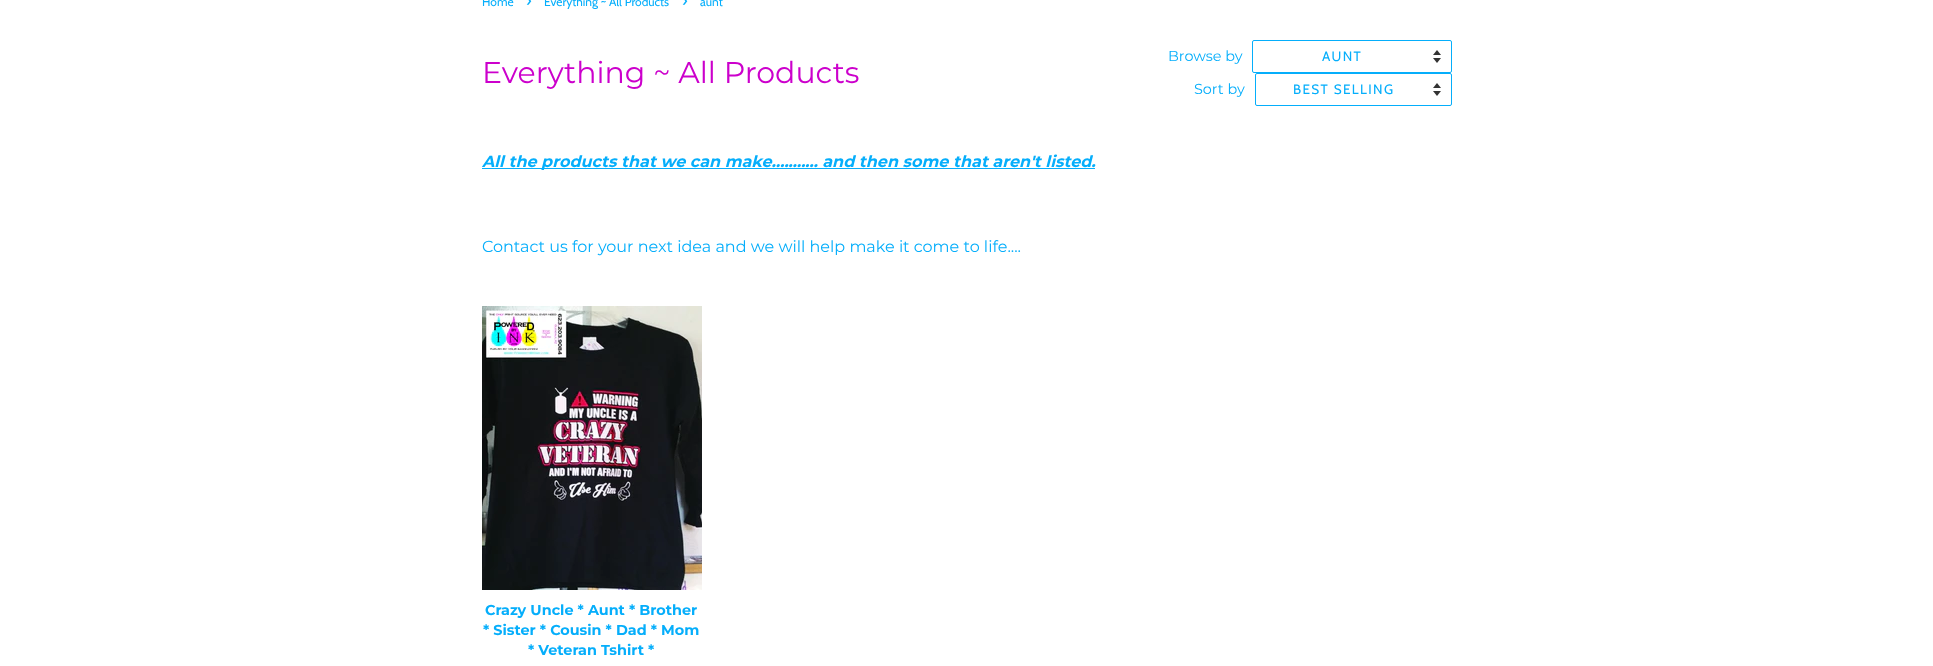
<?xml version="1.0" encoding="UTF-8"?>
<svg xmlns="http://www.w3.org/2000/svg" xmlns:xlink="http://www.w3.org/1999/xlink" width="1933" height="666">
  <rect width="100%" height="100%" fill="#ffffff" />
  <image x="1433" y="50" width="8" height="13" xlink:href="image1.png" />
  <rect x="1252.5" y="40.5" width="199" height="32" rx="1.5" fill="none" stroke="#05aefb" />
  <image x="1433" y="83" width="8" height="13" xlink:href="image1.png" />
  <rect x="1255.5" y="73.5" width="196" height="32" rx="1.5" fill="none" stroke="#05aefb" />
  <rect x="482" y="168" width="613" height="1" fill="#05aefb" />
  <image x="482" y="306" width="220" height="284" xlink:href="image2.png" />
  <text x="482" y="6" style="font-family: Cabin; font-size: 12px; fill: #05aefb">Home</text>
  <text x="526" y="6" style="font-family: Cabin; font-size: 17px; fill: #05aefb">›</text>
  <text x="544" y="6" style="font-family: Cabin; font-size: 12px; fill: #05aefb">Everything ~ All Products</text>
  <text x="682" y="6" style="font-family: Cabin; font-size: 17px; fill: #05aefb">›</text>
  <text x="700" y="6" style="font-family: Cabin; font-size: 12px; fill: #05aefb">aunt</text>
  <text x="482" y="83" style="font-family: Montserrat; font-size: 30px; fill: #cc00cc">Everything ~ All Products</text>
  <text x="1168" y="61" style="font-family: Montserrat; font-size: 14.4px; fill: #05aefb">Browse by</text>
  <text x="1322" y="61" style="font-family: Cabin; font-size: 13.5px; letter-spacing: 1.4px; fill: #05aefb">AUNT</text>
  <text x="1194" y="94" style="font-family: Montserrat; font-size: 14.4px; fill: #05aefb">Sort by</text>
  <text x="1293" y="94" style="font-family: Cabin; font-size: 13.5px; letter-spacing: 1.4px; fill: #05aefb">BEST SELLING</text>
  <text x="482" y="167" style="font-family: Montserrat; font-size: 16px; font-weight: bold; font-style: italic; fill: #05aefb">All the products that we can make........... and then some that aren't listed.</text>
  <text x="482" y="252" style="font-family: Montserrat; font-size: 16px; fill: #05aefb">Contact us for your next idea and we will help make it come to life....</text>
  <text x="485" y="615" style="font-family: Montserrat; font-size: 14.4px; font-weight: bold; fill: #05aefb">Crazy Uncle * Aunt * Brother</text>
  <text x="483" y="635" style="font-family: Montserrat; font-size: 14.4px; font-weight: bold; fill: #05aefb">* Sister * Cousin * Dad * Mom</text>
  <text x="528" y="655" style="font-family: Montserrat; font-size: 14.4px; font-weight: bold; fill: #05aefb">* Veteran Tshirt *</text>
</svg>
